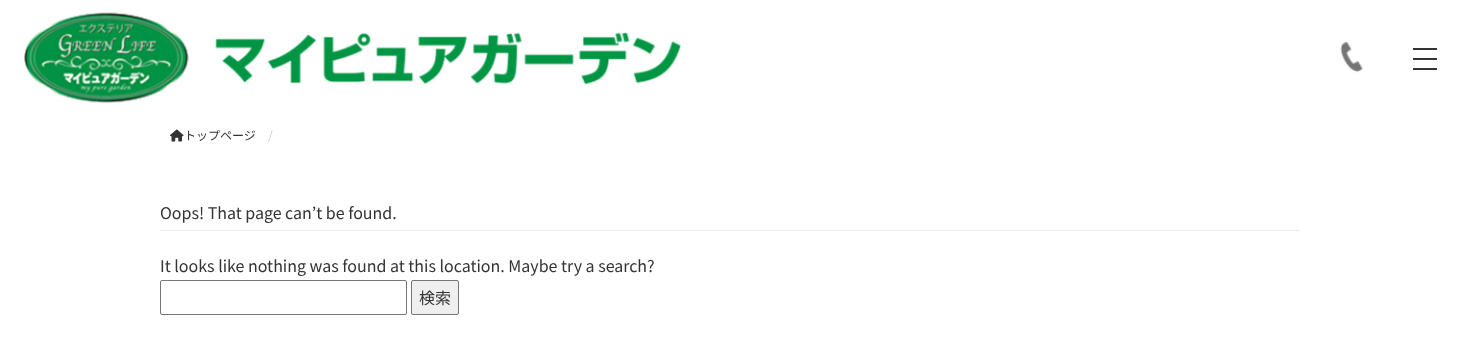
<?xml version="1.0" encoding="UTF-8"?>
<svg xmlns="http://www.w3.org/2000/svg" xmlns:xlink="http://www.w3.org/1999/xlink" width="1460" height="348">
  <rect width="100%" height="100%" fill="#ffffff" />
  <image x="23" y="12" width="658" height="92" xlink:href="image1.png" />
  <image x="1340" y="42" width="23" height="31" xlink:href="image2.png" />
  <rect x="1413" y="58" width="24" height="2" fill="#333333" />
  <rect x="1413" y="48" width="24" height="2" fill="#333333" />
  <rect x="1413" y="68" width="24" height="2" fill="#333333" />
  <image x="170" y="129" width="14" height="13" xlink:href="image3.png" />
  <rect x="160" y="230" width="1140" height="1" fill="#eeeeee" />
  <rect x="160.5" y="280.5" width="246" height="34" rx="1.5" fill="none" stroke="#767676" />
  <rect x="411.5" y="280.5" width="47" height="34" rx="1.5" fill="#efefef" stroke="#767676" />
  <text x="184" y="140" style="font-family: Noto Sans JP; font-size: 12px; font-weight: 100; fill: #333333">トップページ</text>
  <text x="268" y="140" style="font-family: Noto Sans JP; font-size: 12px; font-weight: 100; fill: #cccccc">/</text>
  <text x="160" y="219" style="font-family: Noto Sans JP; font-size: 16px; font-weight: 100; fill: #333333">Oops! That page can’t be found.</text>
  <text x="160" y="272" style="font-family: Noto Sans JP; font-size: 16px; font-weight: 100; fill: #333333">It looks like nothing was found at this location. Maybe try a search?</text>
  <text x="419" y="304" style="font-family: Noto Sans JP; font-size: 16px; font-weight: 100; fill: #333333">検索</text>
</svg>
